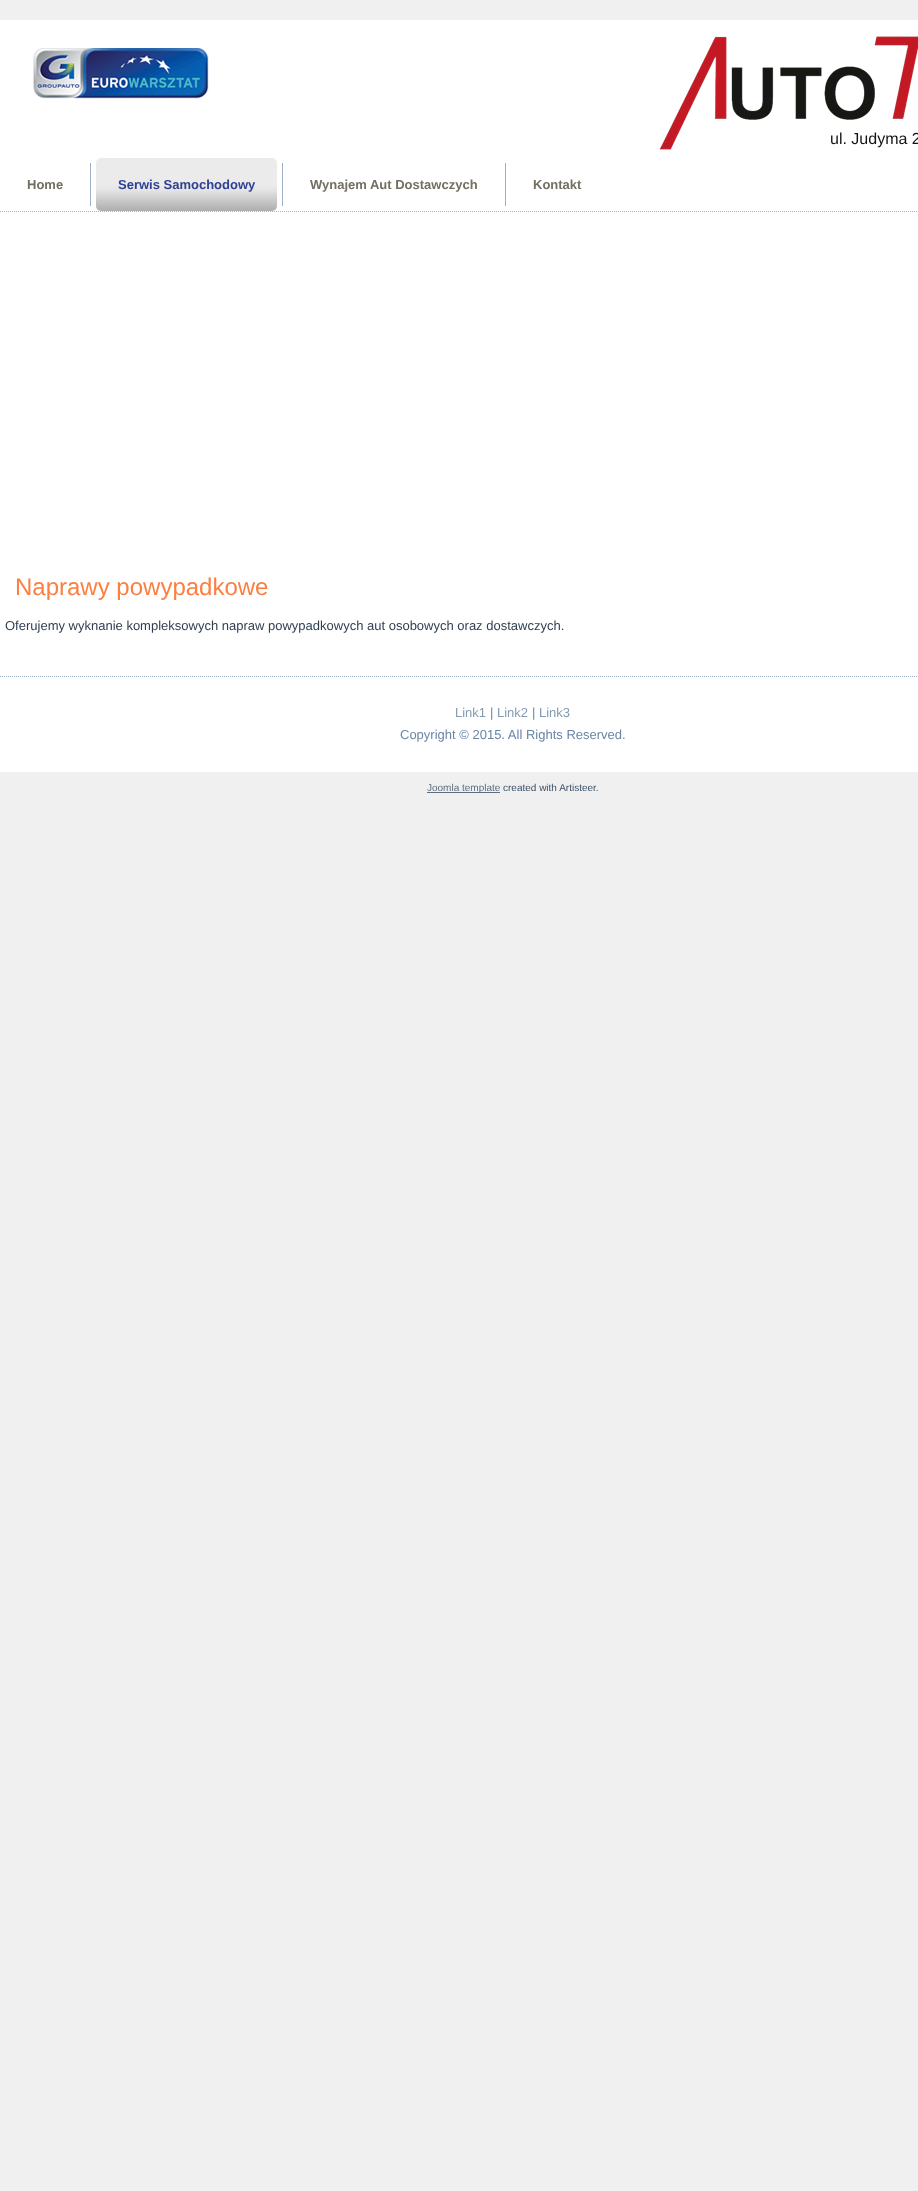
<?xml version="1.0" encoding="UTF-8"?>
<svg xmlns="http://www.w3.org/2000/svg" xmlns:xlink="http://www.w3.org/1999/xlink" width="918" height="2191">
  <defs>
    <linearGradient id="g1" gradientUnits="userSpaceOnUse" x1="187" y1="158" x2="187" y2="211"><stop offset="0" stop-color="#ebebeb" /><stop offset="0.5" stop-color="#ebebeb" /><stop offset="0.6" stop-color="#e5e5e5" /><stop offset="1" stop-color="#adadad" /></linearGradient>
  </defs>
  <rect width="100%" height="100%" fill="#f0f0f0" />
  <rect y="20" width="918" height="752" fill="#ffffff" />
  <image x="33" y="36" width="885" height="114" xlink:href="image1.png" />
  <path d="M 0 211.5 h 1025" fill="none" stroke="#a3b4c8" stroke-dasharray="1 1" />
  <rect x="90" y="163" width="1" height="43" fill="#9cafc4" />
  <rect x="96" y="158" width="181" height="53" rx="5" fill="url(#g1)" />
  <rect x="282" y="163" width="1" height="43" fill="#9cafc4" />
  <rect x="505" y="163" width="1" height="43" fill="#9cafc4" />
  <path d="M 0 676.5 h 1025" fill="none" stroke="#9cafc4" stroke-dasharray="1 1" />
  <rect x="427" y="792" width="73" height="1" fill="#5d6e7e" />
  <text x="830" y="144" style="font-family: Liberation Sans; font-size: 16px; fill: #111417">ul. Judyma 2</text>
  <text x="27" y="189" style="font-family: Liberation Sans; font-size: 13px; font-weight: bold; fill: #746e63">Home</text>
  <text x="118" y="189" style="font-family: Liberation Sans; font-size: 13px; font-weight: bold; fill: #2f4092">Serwis Samochodowy</text>
  <text x="310" y="189" style="font-family: Liberation Sans; font-size: 13px; font-weight: bold; fill: #746e63">Wynajem Aut Dostawczych</text>
  <text x="533" y="189" style="font-family: Liberation Sans; font-size: 13px; font-weight: bold; fill: #746e63">Kontakt</text>
  <text x="15" y="595" style="font-family: Liberation Sans; font-size: 24px; fill: #fb7f41">Naprawy powypadkowe</text>
  <text x="5" y="630" style="font-family: Liberation Sans; font-size: 13px; fill: #303f50">Oferujemy wyknanie kompleksowych napraw powypadkowych aut osobowych oraz dostawczych.</text>
  <text x="455" y="717" style="font-family: Liberation Sans; font-size: 13px; fill: #839bb4">Link1</text>
  <text x="490" y="717" style="font-family: Liberation Sans; font-size: 13px; fill: #6986a5">|</text>
  <text x="497" y="717" style="font-family: Liberation Sans; font-size: 13px; fill: #839bb4">Link2</text>
  <text x="532" y="717" style="font-family: Liberation Sans; font-size: 13px; fill: #6986a5">|</text>
  <text x="539" y="717" style="font-family: Liberation Sans; font-size: 13px; fill: #839bb4">Link3</text>
  <text x="400" y="739" style="font-family: Liberation Sans; font-size: 13px; fill: #6986a5">Copyright © 2015. All Rights Reserved.</text>
  <text x="427" y="791" style="font-family: Liberation Sans; font-size: 10px; fill: #5d6e7e">Joomla template</text>
  <text x="503" y="791" style="font-family: Liberation Sans; font-size: 10px; fill: #3d5166">created with Artisteer.</text>
</svg>
